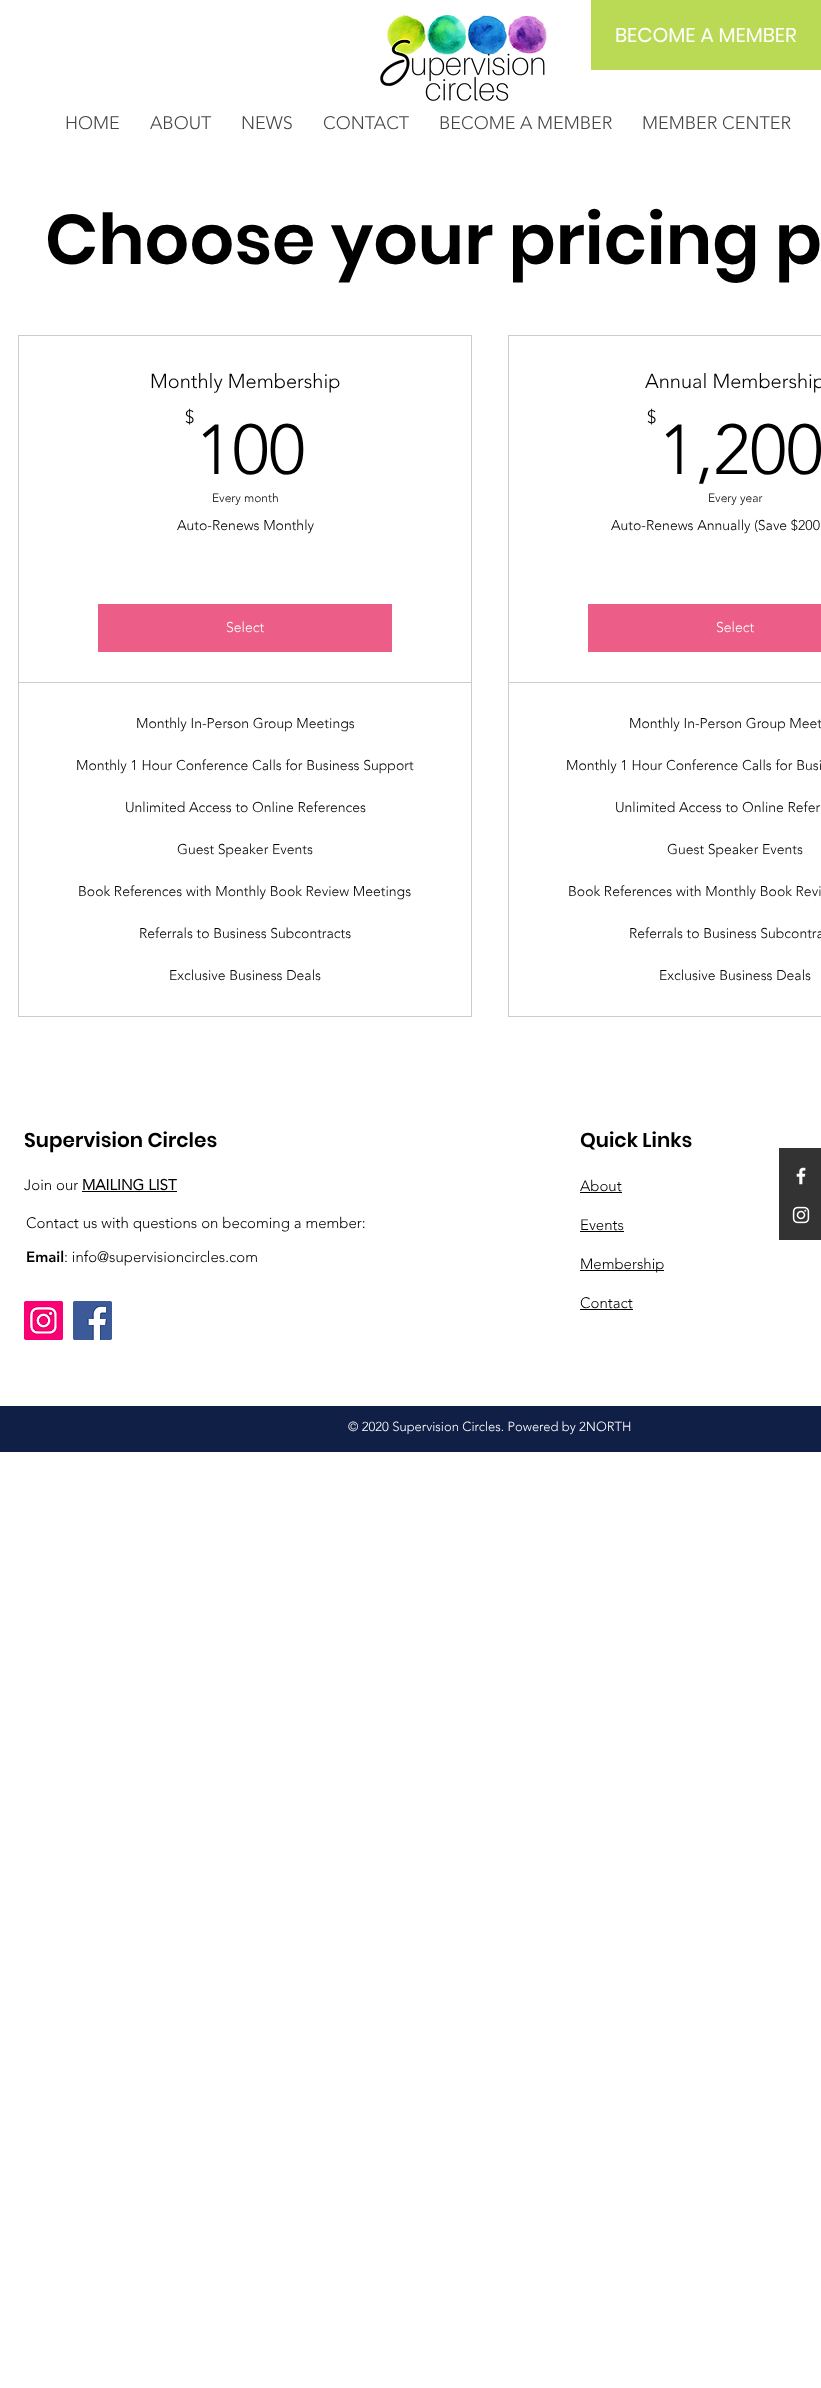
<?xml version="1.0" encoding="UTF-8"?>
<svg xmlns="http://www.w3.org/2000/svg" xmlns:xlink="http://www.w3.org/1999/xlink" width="821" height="2388">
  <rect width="100%" height="100%" fill="#ffffff" />
  <rect x="591" width="230" height="70" fill="#bada55" />
  <image x="380" y="15" width="167" height="86" xlink:href="image1.png" />
  <rect x="18.5" y="335.5" width="453" height="681" fill="none" stroke="#cccccc" />
  <rect x="98" y="604" width="294" height="48" fill="#ec5e87" />
  <rect x="19" y="682" width="452" height="1" fill="#cccccc" />
  <rect x="508.5" y="335.5" width="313" height="681" fill="none" stroke="#cccccc" />
  <rect x="588" y="604" width="233" height="48" fill="#ec5e87" />
  <rect x="509" y="682" width="312" height="1" fill="#cccccc" />
  <rect x="82" y="1191" width="95" height="1" fill="#000000" />
  <image x="24" y="1301" width="39" height="39" xlink:href="image2.png" />
  <image x="73" y="1301" width="39" height="39" xlink:href="image3.png" />
  <rect x="580" y="1192" width="42" height="1" fill="#000000" />
  <rect x="580" y="1231" width="44" height="1" fill="#000000" />
  <rect x="580" y="1270" width="84" height="1" fill="#000000" />
  <rect x="580" y="1309" width="53" height="1" fill="#000000" />
  <rect y="1406" width="821" height="46" fill="#101f46" />
  <rect x="779" y="1148" width="42" height="92" fill="#333333" />
  <image x="796" y="1167" width="10" height="18" xlink:href="image4.png" />
  <image x="792" y="1206" width="18" height="18" xlink:href="image5.png" />
  <text x="615" y="42" style="font-family: Poppins; font-size: 20px; fill: #ffffff">BECOME A MEMBER</text>
  <text x="65" y="129" style="font-family: 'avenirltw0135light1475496'; font-size: 18px; font-weight: 300; fill: #444444">HOME</text>
  <text x="150" y="129" style="font-family: 'avenirltw0135light1475496'; font-size: 18px; font-weight: 300; fill: #444444">ABOUT</text>
  <text x="241" y="129" style="font-family: 'avenirltw0135light1475496'; font-size: 18px; font-weight: 300; fill: #444444">NEWS</text>
  <text x="323" y="129" style="font-family: 'avenirltw0135light1475496'; font-size: 18px; font-weight: 300; fill: #444444">CONTACT</text>
  <text x="439" y="129" style="font-family: 'avenirltw0135light1475496'; font-size: 18px; font-weight: 300; fill: #444444">BECOME A MEMBER</text>
  <text x="642" y="129" style="font-family: 'avenirltw0135light1475496'; font-size: 18px; font-weight: 300; fill: #444444">MEMBER CENTER</text>
  <text x="45" y="264" style="font-family: Poppins; font-size: 70px; font-weight: 600; fill: #000000">Choose your pricing p</text>
  <text x="150" y="388" style="font-family: 'avenirltw0135light1475496'; font-size: 20px; font-weight: 300; fill: #000000">Monthly Membership</text>
  <text x="185" y="423" style="font-family: 'avenirltw0135light1475496'; font-size: 18px; font-weight: 300; fill: #000000">$</text>
  <text x="196" y="474" style="font-family: 'avenirltw0135light1475496'; font-size: 70px; font-weight: 300; fill: #000000">100</text>
  <text x="212" y="502" style="font-family: 'avenirltw0135light1475496'; font-size: 12px; font-weight: 300; fill: #000000">Every month</text>
  <text x="177" y="530" style="font-family: 'avenirltw0135light1475496'; font-size: 14px; font-weight: 300; fill: #000000">Auto-Renews Monthly</text>
  <text x="226" y="632" style="font-family: 'avenirltw0135light1475496'; font-size: 14px; font-weight: 300; fill: #ffffff">Select</text>
  <text x="136" y="728" style="font-family: 'avenirltw0135light1475496'; font-size: 14px; font-weight: 300; fill: #000000">Monthly In-Person Group Meetings</text>
  <text x="76" y="770" style="font-family: 'avenirltw0135light1475496'; font-size: 14px; font-weight: 300; fill: #000000">Monthly 1 Hour Conference Calls for Business Support</text>
  <text x="125" y="812" style="font-family: 'avenirltw0135light1475496'; font-size: 14px; font-weight: 300; fill: #000000">Unlimited Access to Online References</text>
  <text x="177" y="854" style="font-family: 'avenirltw0135light1475496'; font-size: 14px; font-weight: 300; fill: #000000">Guest Speaker Events</text>
  <text x="78" y="896" style="font-family: 'avenirltw0135light1475496'; font-size: 14px; font-weight: 300; fill: #000000">Book References with Monthly Book Review Meetings</text>
  <text x="139" y="938" style="font-family: 'avenirltw0135light1475496'; font-size: 14px; font-weight: 300; fill: #000000">Referrals to Business Subcontracts</text>
  <text x="169" y="980" style="font-family: 'avenirltw0135light1475496'; font-size: 14px; font-weight: 300; fill: #000000">Exclusive Business Deals</text>
  <text x="645" y="388" style="font-family: 'avenirltw0135light1475496'; font-size: 20px; font-weight: 300; fill: #000000">Annual Membership</text>
  <text x="647" y="423" style="font-family: 'avenirltw0135light1475496'; font-size: 18px; font-weight: 300; fill: #000000">$</text>
  <text x="659" y="474" style="font-family: 'avenirltw0135light1475496'; font-size: 70px; font-weight: 300; fill: #000000">1,200</text>
  <text x="708" y="502" style="font-family: 'avenirltw0135light1475496'; font-size: 12px; font-weight: 300; fill: #000000">Every year</text>
  <text x="611" y="530" style="font-family: 'avenirltw0135light1475496'; font-size: 14px; font-weight: 300; fill: #000000">Auto-Renews Annually (Save $200</text>
  <text x="716" y="632" style="font-family: 'avenirltw0135light1475496'; font-size: 14px; font-weight: 300; fill: #ffffff">Select</text>
  <text x="629" y="728" style="font-family: 'avenirltw0135light1475496'; font-size: 14px; font-weight: 300; fill: #000000">Monthly In-Person Group Meet</text>
  <text x="566" y="770" style="font-family: 'avenirltw0135light1475496'; font-size: 14px; font-weight: 300; fill: #000000">Monthly 1 Hour Conference Calls for Busi</text>
  <text x="615" y="812" style="font-family: 'avenirltw0135light1475496'; font-size: 14px; font-weight: 300; fill: #000000">Unlimited Access to Online Refer</text>
  <text x="667" y="854" style="font-family: 'avenirltw0135light1475496'; font-size: 14px; font-weight: 300; fill: #000000">Guest Speaker Events</text>
  <text x="568" y="896" style="font-family: 'avenirltw0135light1475496'; font-size: 14px; font-weight: 300; fill: #000000">Book References with Monthly Book Revi</text>
  <text x="629" y="938" style="font-family: 'avenirltw0135light1475496'; font-size: 14px; font-weight: 300; fill: #000000">Referrals to Business Subcontra</text>
  <text x="659" y="980" style="font-family: 'avenirltw0135light1475496'; font-size: 14px; font-weight: 300; fill: #000000">Exclusive Business Deals</text>
  <text x="24" y="1147" style="font-family: Poppins; font-size: 20px; font-weight: 600; fill: #000000">Supervision Circles</text>
  <text x="24" y="1190" style="font-family: 'avenirltw0135light1475496'; font-size: 15px; font-weight: 300; fill: #000000">Join our</text>
  <text x="82" y="1190" style="font-family: 'avenirltw0135light1475496'; font-size: 15px; font-weight: bold; fill: #000000">MAILING LIST</text>
  <text x="26" y="1228" style="font-family: 'avenirltw0135light1475496'; font-size: 15px; font-weight: 300; fill: #000000">Contact us with questions on becoming a member:</text>
  <text x="26" y="1262" style="font-family: 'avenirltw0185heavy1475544'; font-size: 15px; font-weight: 900; fill: #000000">Email</text>
  <text x="64" y="1262" style="font-family: 'avenirltw0135light1475496'; font-size: 15px; font-weight: 300; fill: #000000">: info@supervisioncircles.com</text>
  <text x="580" y="1147" style="font-family: Poppins; font-size: 20px; font-weight: 600; fill: #000000">Quick Links</text>
  <text x="580" y="1191" style="font-family: 'avenirltw0135light1475496'; font-size: 15px; font-weight: 300; fill: #000000">About</text>
  <text x="580" y="1230" style="font-family: 'avenirltw0135light1475496'; font-size: 15px; font-weight: 300; fill: #000000">Events</text>
  <text x="580" y="1269" style="font-family: 'avenirltw0135light1475496'; font-size: 15px; font-weight: 300; fill: #000000">Membership</text>
  <text x="580" y="1308" style="font-family: 'avenirltw0135light1475496'; font-size: 15px; font-weight: 300; fill: #000000">Contact</text>
  <text x="348" y="1431" style="font-family: 'avenirltw0135light1475496'; font-size: 13px; font-weight: 300; fill: #ffffff">© 2020 Supervision Circles. Powered by 2NORTH</text>
</svg>
